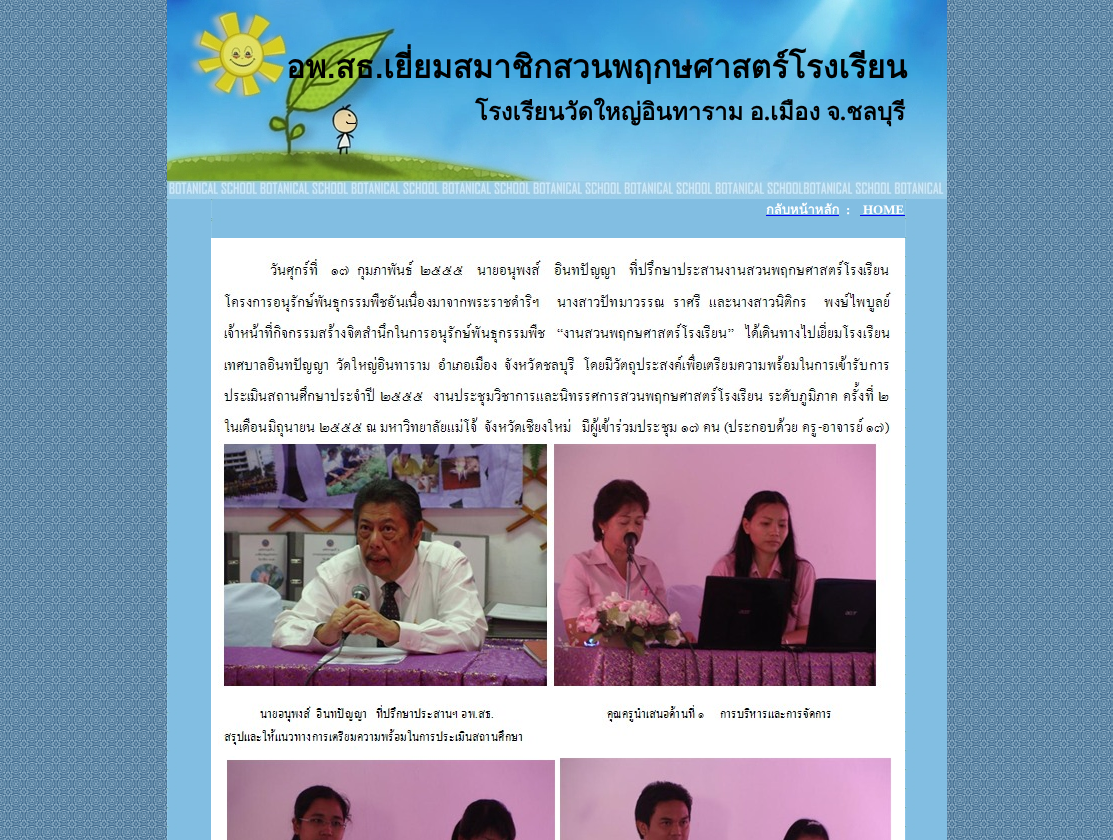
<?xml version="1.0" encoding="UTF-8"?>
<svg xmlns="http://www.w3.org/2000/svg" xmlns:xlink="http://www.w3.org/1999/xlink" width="1113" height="840">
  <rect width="100%" height="100%" fill="#ffffff" />
  <image x="0" y="0" width="1113" height="840" xlink:href="image1.png" />
  <image x="167" y="0" width="780" height="199" xlink:href="image2.png" />
  <image x="167" y="199" width="44" height="57" xlink:href="image3.png" />
  <image x="211" y="199" width="694" height="21" xlink:href="image4.png" />
  <rect x="766" y="215" width="73" height="1" fill="#0000ee" />
  <rect x="860" y="215" width="45" height="1" fill="#0000ee" />
  <image x="905" y="199" width="42" height="57" xlink:href="image5.png" />
  <image x="211" y="220" width="694" height="18" xlink:href="image6.png" />
  <rect x="211" y="238" width="694" height="602" fill="#ffffff" />
  <image x="167" y="256" width="44" height="584" xlink:href="image7.png" />
  <image x="218" y="256" width="678" height="494" xlink:href="image8.png" />
  <image x="226" y="756" width="666" height="84" xlink:href="image9.png" />
  <image x="905" y="256" width="42" height="584" xlink:href="image10.png" />
  <text x="286" y="78" style="font-family: Loma; font-size: 32px; font-weight: bold; fill: #000000">อพ.สธ.เยี่ยมสมาชิกสวนพฤกษศาสตร์โรงเรียน</text>
  <text x="475" y="120" word-spacing="-2" style="font-family: Loma; font-size: 24px; font-weight: bold; fill: #000000">โรงเรียนวัดใหญ่อินทาราม อ</text>
  <text x="846" y="120" style="font-family: Loma; font-size: 24px; font-weight: bold; fill: #000000">ชลบุรี</text>
  <text x="764" y="120" style="font-family: Liberation Serif; font-size: 24px; font-weight: bold; fill: #000000">.</text>
  <text x="770" y="120" word-spacing="-2" style="font-family: Loma; font-size: 24px; font-weight: bold; fill: #000000">เมือง จ</text>
  <text x="840" y="120" style="font-family: Liberation Serif; font-size: 24px; font-weight: bold; fill: #000000">.</text>
  <text x="766" y="214" style="font-family: Loma; font-size: 13px; font-weight: bold; fill: #ffffff">กลับหน้าหลัก</text>
  <text x="846" y="214" style="font-family: Liberation Serif; font-size: 13px; font-weight: bold; fill: #ffffff">:</text>
  <text x="863" y="214" style="font-family: Liberation Serif; font-size: 13px; font-weight: bold; fill: #ffffff">HOME</text>
</svg>
